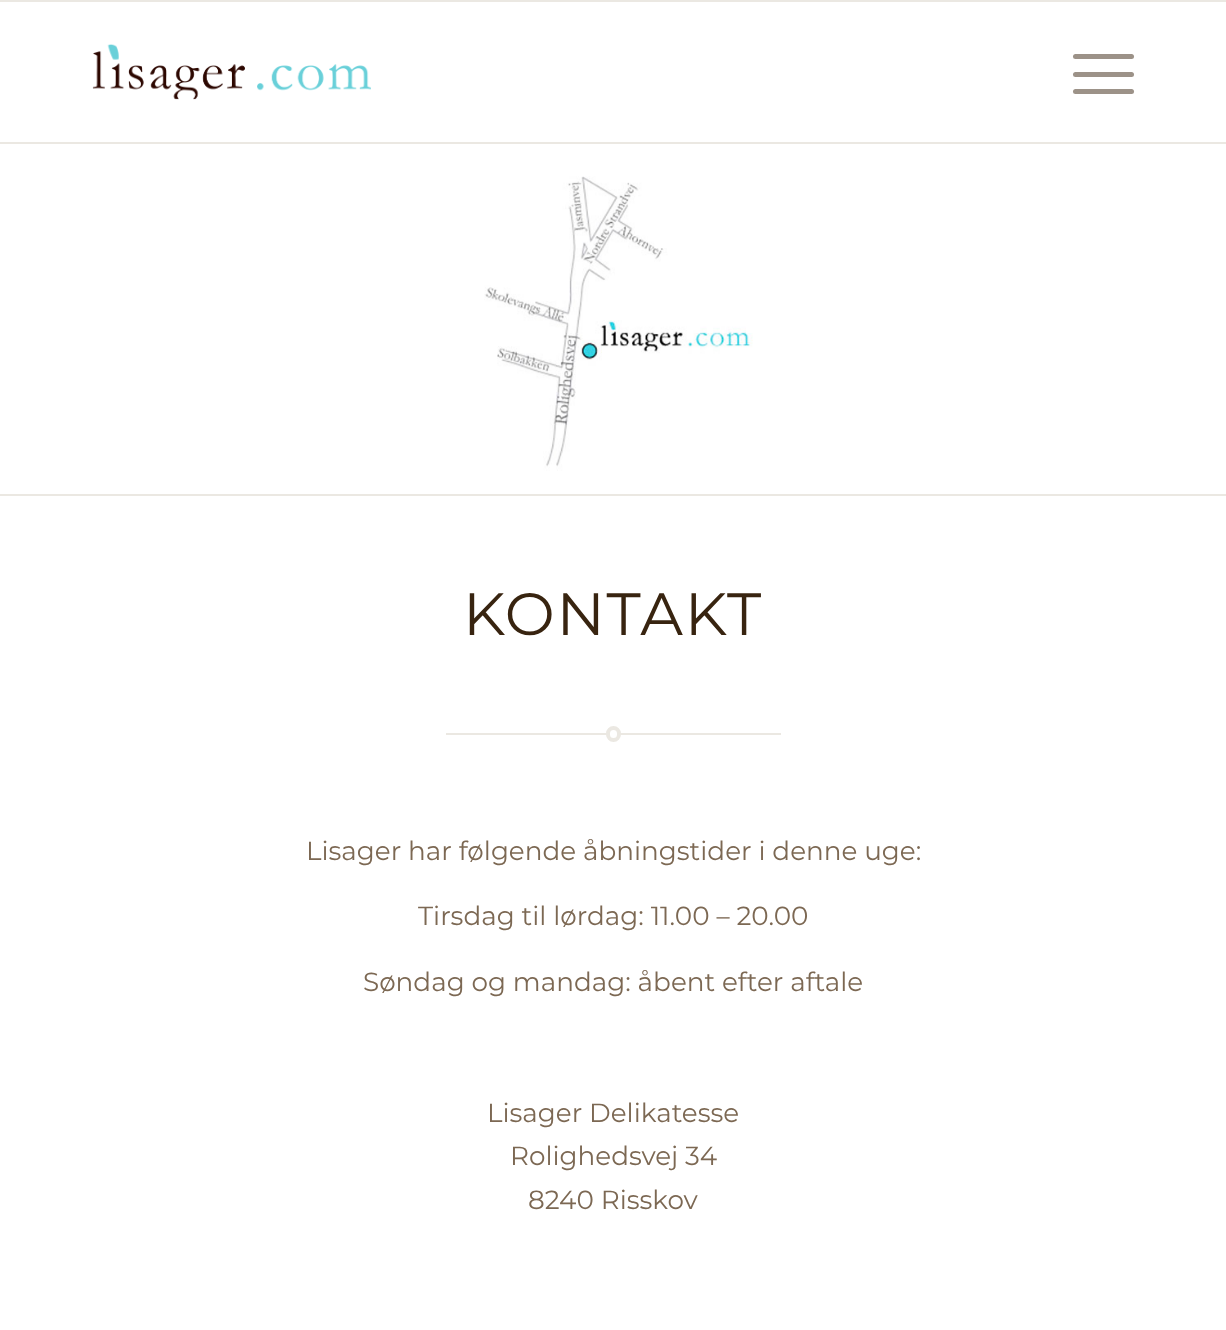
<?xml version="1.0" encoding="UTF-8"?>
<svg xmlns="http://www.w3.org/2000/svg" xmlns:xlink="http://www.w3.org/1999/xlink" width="1226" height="1330">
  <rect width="100%" height="100%" fill="#ffffff" />
  <rect width="1226" height="2" fill="#ebe8e2" />
  <rect y="142" width="1226" height="2" fill="#ebe8e2" />
  <image x="92" y="44" width="279" height="56" xlink:href="image1.png" />
  <rect x="1073" y="72" width="61" height="5" rx="2.5" fill="#9c9288" />
  <rect x="1073" y="54" width="61" height="5" rx="2.5" fill="#9c9288" />
  <rect x="1073" y="89" width="61" height="5" rx="2.5" fill="#9c9288" />
  <image x="484" y="176" width="269" height="295" xlink:href="image2.png" />
  <rect y="494" width="1226" height="2" fill="#ebe8e2" />
  <rect x="446" y="733" width="335" height="2" fill="#ebe8e2" />
  <rect x="608" y="728" width="11" height="12" rx="5.5" fill="#ffffff" stroke="#ebe8e2" stroke-width="4" />
  <text x="463" y="635" style="font-family: Montserrat; font-size: 59.5px; font-weight: 100; letter-spacing: 1.75px; fill: #382410">KONTAKT</text>
  <text x="306" y="860" style="font-family: Montserrat; font-size: 26.25px; font-weight: 100; fill: #7c6853">Lisager har følgende åbningstider i denne uge:</text>
  <text x="418" y="925" style="font-family: Montserrat; font-size: 26.25px; font-weight: 100; fill: #7c6853">Tirsdag til lørdag: 11.00 – 20.00</text>
  <text x="363" y="991" style="font-family: Montserrat; font-size: 26.25px; font-weight: 100; fill: #7c6853">Søndag og mandag: åbent efter aftale</text>
  <text x="487" y="1122" style="font-family: Montserrat; font-size: 26.25px; font-weight: 100; fill: #7c6853">Lisager Delikatesse</text>
  <text x="510" y="1165" style="font-family: Montserrat; font-size: 26.25px; font-weight: 100; fill: #7c6853">Rolighedsvej 34</text>
  <text x="528" y="1209" style="font-family: Montserrat; font-size: 26.25px; font-weight: 100; fill: #7c6853">8240 Risskov</text>
</svg>
